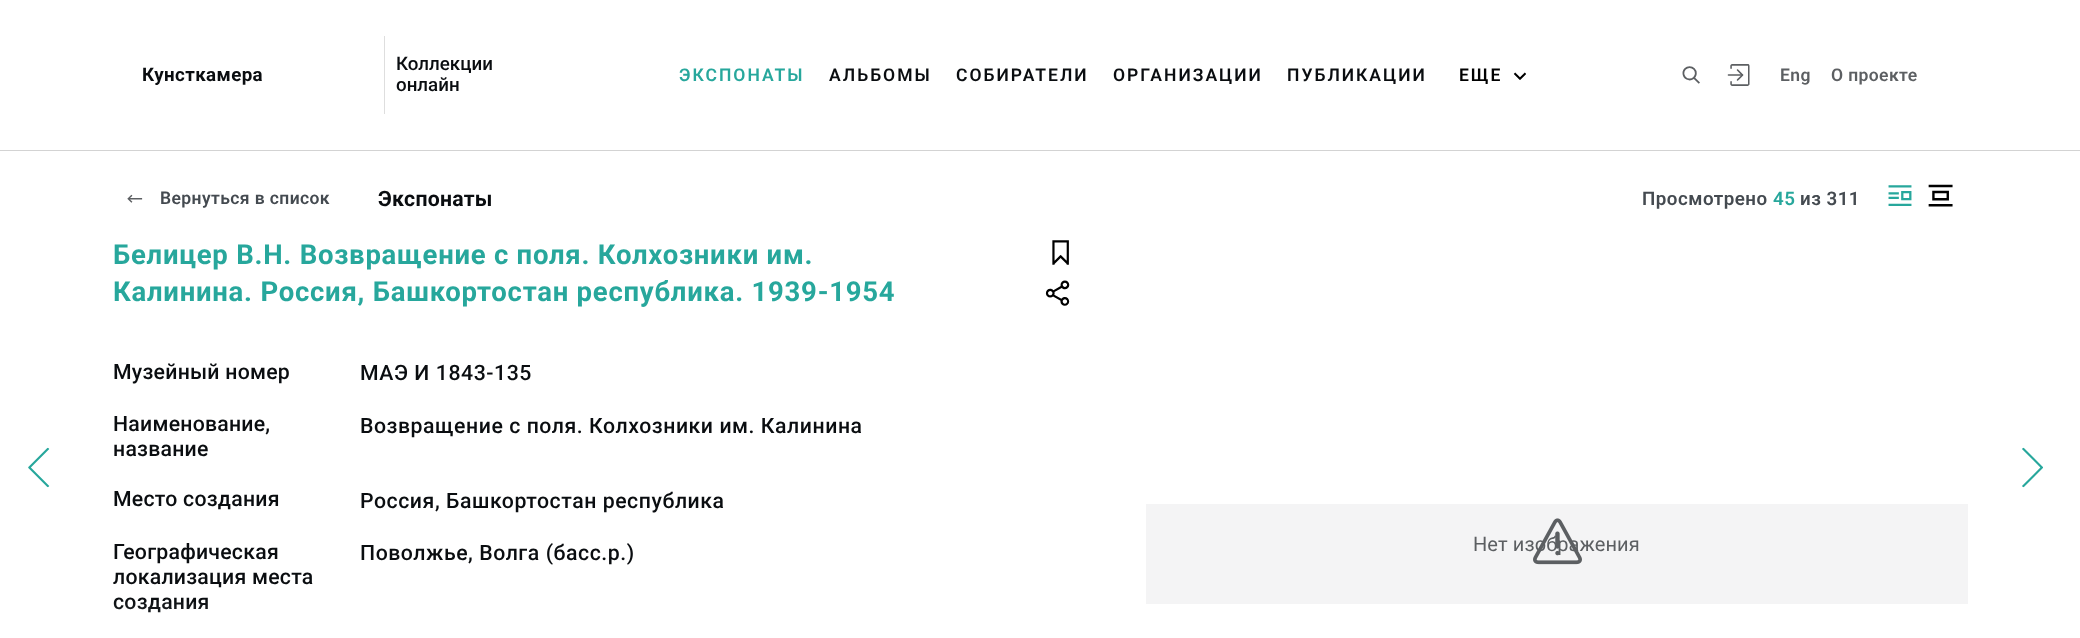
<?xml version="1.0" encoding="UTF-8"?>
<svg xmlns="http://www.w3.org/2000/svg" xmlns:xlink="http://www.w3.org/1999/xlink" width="2080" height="638">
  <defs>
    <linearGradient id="g1" gradientUnits="userSpaceOnUse" x1="558" y1="599" x2="558" y2="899"><stop offset="0" stop-color="#ffffff" stop-opacity="0.01" /><stop offset="0.8" stop-color="#ffffff" /></linearGradient>
  </defs>
  <rect width="100%" height="100%" fill="#ffffff" />
  <rect y="150" width="2080" height="1" fill="#d3d3d3" />
  <rect x="384" y="36" width="1" height="78" fill="#dedede" />
  <image x="1513" y="72" width="13" height="8" xlink:href="image1.png" />
  <image x="1682" y="66" width="18" height="18" xlink:href="image2.png" />
  <image x="1727" y="64" width="23" height="22" xlink:href="image3.png" />
  <image x="127" y="194" width="16" height="9" xlink:href="image4.png" />
  <image x="1888" y="185" width="24" height="21" xlink:href="image5.png" />
  <image x="1928" y="184" width="25" height="23" xlink:href="image6.png" />
  <image x="28" y="447" width="22" height="41" xlink:href="image7.png" />
  <image x="1052" y="240" width="17" height="25" xlink:href="image8.png" />
  <image x="1045" y="280" width="25" height="26" xlink:href="image9.png" />
  <rect x="1146" y="504" width="822" height="100" fill="#f4f4f5" />
  <image x="2022" y="447" width="21" height="41" xlink:href="image11.png" />
  <text x="142" y="81" style="font-family: Roboto; font-size: 18.75px; font-weight: bold; letter-spacing: 0.4px; fill: #0a0d10">Кунсткамера</text>
  <text x="396" y="70" style="font-family: Roboto; font-size: 18.75px; font-weight: 500; fill: #0a0d10">Коллекции</text>
  <text x="396" y="91" style="font-family: Roboto; font-size: 18.75px; font-weight: 500; fill: #0a0d10">онлайн</text>
  <text x="679" y="81" style="font-family: Roboto; font-size: 17.5px; font-weight: 600; letter-spacing: 2px; fill: #27a79c">ЭКСПОНАТЫ</text>
  <text x="829" y="81" style="font-family: Roboto; font-size: 17.5px; font-weight: 600; letter-spacing: 2px; fill: #0a0d10">АЛЬБОМЫ</text>
  <text x="956" y="81" style="font-family: Roboto; font-size: 17.5px; font-weight: 600; letter-spacing: 2px; fill: #0a0d10">СОБИРАТЕЛИ</text>
  <text x="1113" y="81" style="font-family: Roboto; font-size: 17.5px; font-weight: 600; letter-spacing: 2px; fill: #0a0d10">ОРГАНИЗАЦИИ</text>
  <text x="1287" y="81" style="font-family: Roboto; font-size: 17.5px; font-weight: 600; letter-spacing: 2px; fill: #0a0d10">ПУБЛИКАЦИИ</text>
  <text x="1459" y="81" style="font-family: Roboto; font-size: 17.5px; font-weight: 600; letter-spacing: 2px; fill: #000000">ЕЩЕ</text>
  <text x="1780" y="81" style="font-family: Roboto; font-size: 17.5px; font-weight: 600; letter-spacing: 0.4px; fill: #5c5f62">Eng</text>
  <text x="1831" y="81" style="font-family: Roboto; font-size: 17.5px; font-weight: 600; letter-spacing: 0.4px; fill: #5c5f62">О проекте</text>
  <text x="160" y="204" style="font-family: Roboto; font-size: 17.5px; font-weight: 600; letter-spacing: 0.4px; fill: #444a50">Вернуться в список</text>
  <text x="378" y="206" style="font-family: Roboto; font-size: 21.25px; font-weight: bold; letter-spacing: 0.25px; fill: #0a0d10">Экспонаты</text>
  <text x="1642" y="205" style="font-family: Roboto; font-size: 18.75px; font-weight: 600; letter-spacing: 0.5px; fill: #444a50">Просмотрено</text>
  <text x="1773" y="205" style="font-family: Roboto; font-size: 18.75px; font-weight: 600; letter-spacing: 0.5px; fill: #27a79c">45</text>
  <text x="1800" y="205" style="font-family: Roboto; font-size: 18.75px; font-weight: 600; letter-spacing: 0.5px; fill: #444a50">из 311</text>
  <text x="113" y="264" style="font-family: Roboto; font-size: 27.5px; font-weight: bold; letter-spacing: 0.75px; fill: #27a79c">Белицер В.Н. Возвращение с поля. Колхозники им.</text>
  <text x="113" y="301" style="font-family: Roboto; font-size: 27.5px; font-weight: bold; letter-spacing: 0.75px; fill: #27a79c">Калинина. Россия, Башкортостан республика. 1939-1954</text>
  <text x="113" y="379" style="font-family: Roboto; font-size: 21.25px; font-weight: 500; letter-spacing: 0.25px; fill: #0a0d10">Музейный номер</text>
  <text x="360" y="380" style="font-family: Roboto; font-size: 21.25px; font-weight: 500; letter-spacing: 0.55px; fill: #0a0d10">МАЭ И 1843-135</text>
  <text x="113" y="431" style="font-family: Roboto; font-size: 21.25px; font-weight: 500; letter-spacing: 0.25px; fill: #0a0d10">Наименование,</text>
  <text x="113" y="456" style="font-family: Roboto; font-size: 21.25px; font-weight: 500; letter-spacing: 0.25px; fill: #0a0d10">название</text>
  <text x="360" y="433" style="font-family: Roboto; font-size: 21.25px; font-weight: 500; letter-spacing: 0.55px; fill: #0a0d10">Возвращение с поля. Колхозники им. Калинина</text>
  <text x="113" y="506" style="font-family: Roboto; font-size: 21.25px; font-weight: 500; letter-spacing: 0.25px; fill: #0a0d10">Место создания</text>
  <text x="360" y="508" style="font-family: Roboto; font-size: 21.25px; font-weight: 500; letter-spacing: 0.55px; fill: #0a0d10">Россия, Башкортостан республика</text>
  <text x="113" y="559" style="font-family: Roboto; font-size: 21.25px; font-weight: 500; letter-spacing: 0.25px; fill: #0a0d10">Географическая</text>
  <text x="113" y="584" style="font-family: Roboto; font-size: 21.25px; font-weight: 500; letter-spacing: 0.25px; fill: #0a0d10">локализация места</text>
  <text x="113" y="609" style="font-family: Roboto; font-size: 21.25px; font-weight: 500; letter-spacing: 0.25px; fill: #0a0d10">создания</text>
  <text x="360" y="560" style="font-family: Roboto; font-size: 21.25px; font-weight: 500; letter-spacing: 0.55px; fill: #0a0d10">Поволжье, Волга (басс.р.)</text>
  <rect x="113" y="602" width="94" height="11" fill="url(#g1)" />
  <text x="1473" y="551" style="font-family: Roboto; font-size: 20px; letter-spacing: 0.1px; fill: #5c5f62">Нет изображения</text>
  <image x="1533" y="518" width="49" height="47" xlink:href="image10.png" />
</svg>
